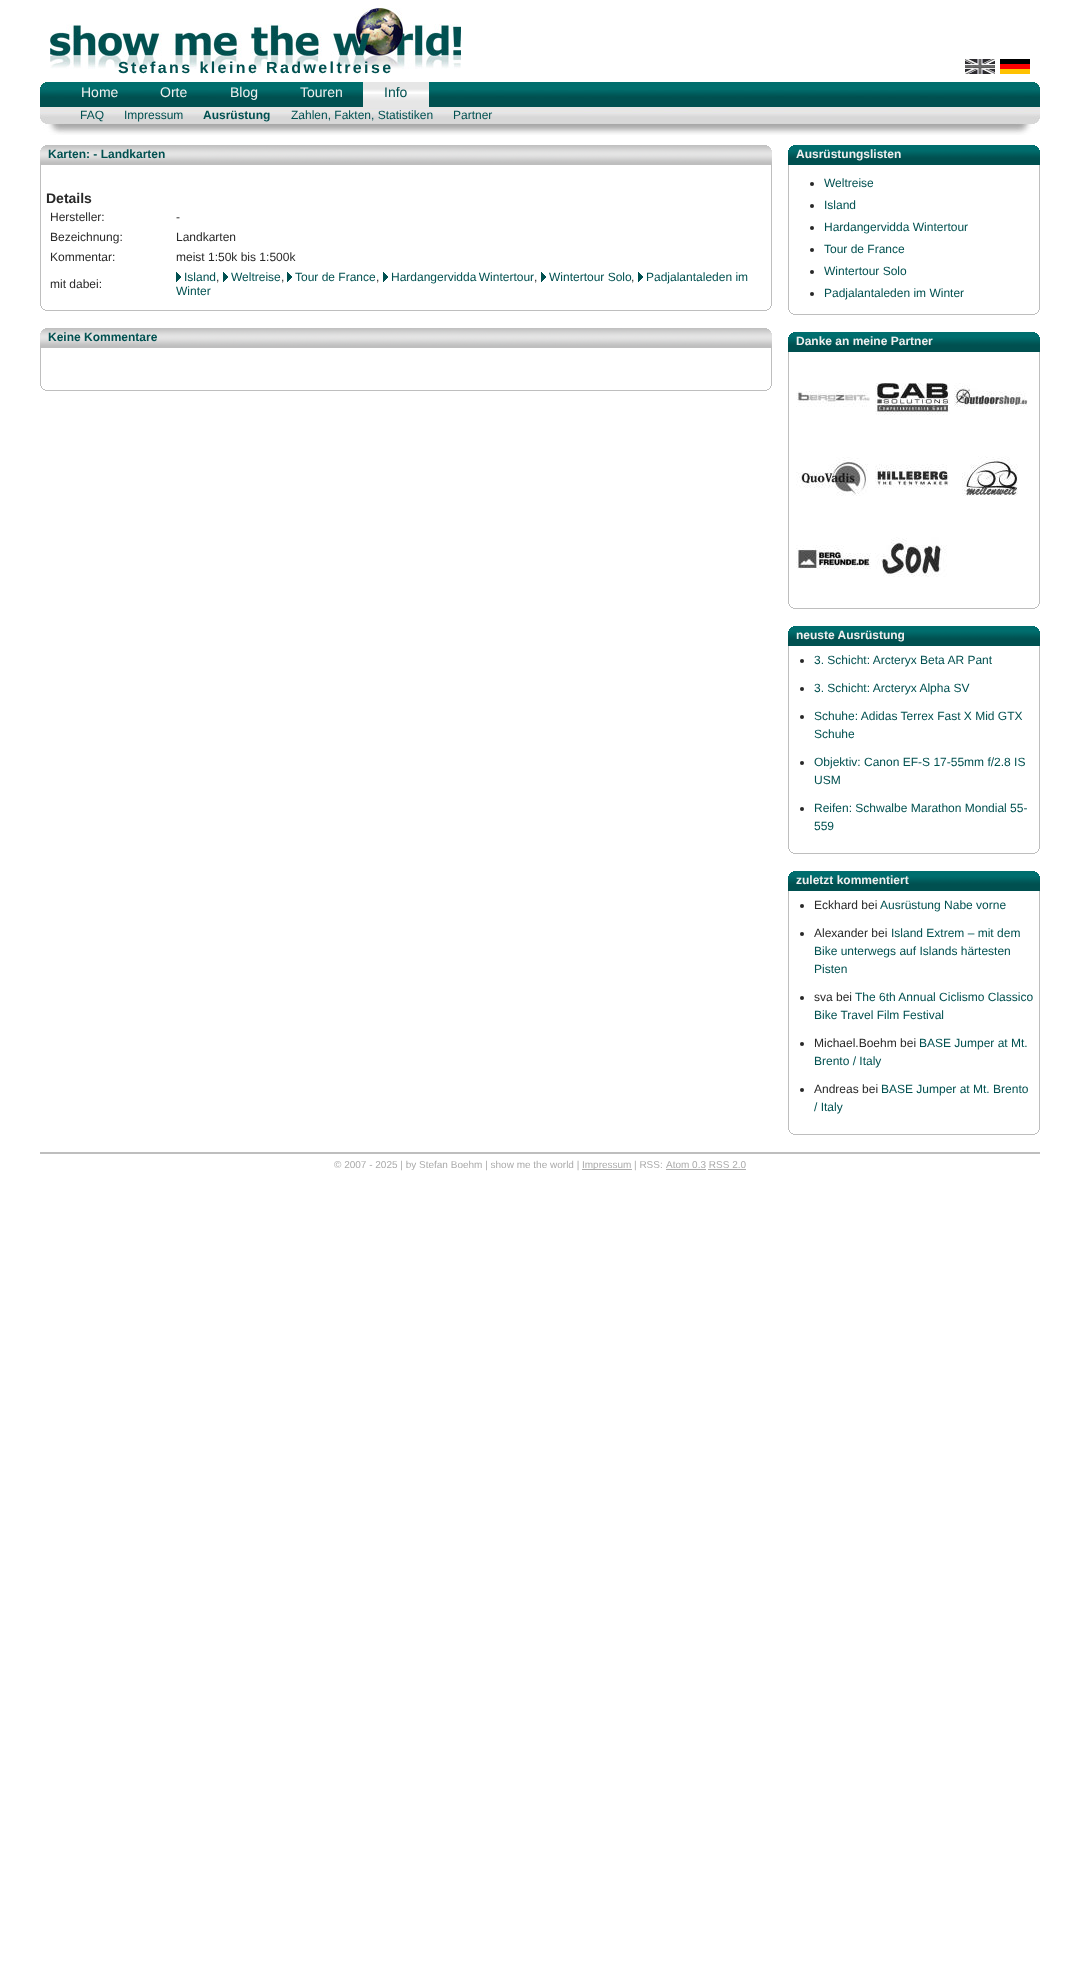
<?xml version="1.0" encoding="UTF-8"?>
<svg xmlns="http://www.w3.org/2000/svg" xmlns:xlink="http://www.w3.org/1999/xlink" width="1080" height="1979">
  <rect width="100%" height="100%" fill="#ffffff" />
  <image x="50" y="8" width="411" height="61" xlink:href="image1.png" />
  <image x="965" y="59" width="30" height="15" xlink:href="image2.png" />
  <image x="1000" y="59" width="30" height="15" xlink:href="image3.png" />
  <image x="40" y="82" width="1000" height="53" xlink:href="image4.png" />
  <image x="363" y="82" width="66" height="25" xlink:href="image5.png" />
  <image x="40" y="145" width="732" height="20" xlink:href="image6.png" />
  <image x="40" y="145" width="5" height="5" xlink:href="image7.png" />
  <rect x="771" y="165" width="1" height="137" fill="#bebebe" />
  <rect x="40" y="165" width="1" height="137" fill="#bebebe" />
  <image x="176" y="272" width="5" height="10" xlink:href="image8.png" />
  <image x="223" y="272" width="5" height="10" xlink:href="image8.png" />
  <image x="287" y="272" width="5" height="10" xlink:href="image8.png" />
  <image x="383" y="272" width="5" height="10" xlink:href="image8.png" />
  <image x="541" y="272" width="5" height="10" xlink:href="image8.png" />
  <image x="638" y="272" width="5" height="10" xlink:href="image8.png" />
  <image x="45" y="302" width="727" height="9" xlink:href="image9.png" />
  <image x="40" y="302" width="5" height="9" xlink:href="image10.png" />
  <image x="40" y="328" width="732" height="20" xlink:href="image6.png" />
  <image x="40" y="328" width="5" height="5" xlink:href="image7.png" />
  <rect x="771" y="348" width="1" height="34" fill="#bebebe" />
  <rect x="40" y="348" width="1" height="34" fill="#bebebe" />
  <image x="45" y="382" width="727" height="9" xlink:href="image9.png" />
  <image x="40" y="382" width="5" height="9" xlink:href="image10.png" />
  <image x="788" y="145" width="252" height="20" xlink:href="image11.png" />
  <image x="788" y="145" width="5" height="5" xlink:href="image12.png" />
  <rect x="1039" y="165" width="1" height="141" fill="#bebebe" />
  <rect x="788" y="165" width="1" height="141" fill="#bebebe" />
  <circle cx="812" cy="184" r="2" fill="#282828" />
  <circle cx="812" cy="206" r="2" fill="#282828" />
  <circle cx="812" cy="228" r="2" fill="#282828" />
  <circle cx="812" cy="250" r="2" fill="#282828" />
  <circle cx="812" cy="272" r="2" fill="#282828" />
  <circle cx="812" cy="294" r="2" fill="#282828" />
  <image x="793" y="306" width="247" height="9" xlink:href="image13.png" />
  <image x="788" y="306" width="5" height="9" xlink:href="image10.png" />
  <image x="788" y="332" width="252" height="20" xlink:href="image11.png" />
  <image x="788" y="332" width="5" height="5" xlink:href="image12.png" />
  <rect x="1039" y="352" width="1" height="248" fill="#bebebe" />
  <rect x="788" y="352" width="1" height="248" fill="#bebebe" />
  <image x="796" y="391" width="74" height="16" xlink:href="image14.png" />
  <image x="875" y="383" width="75" height="32" xlink:href="image15.png" />
  <image x="954" y="383" width="74" height="24" xlink:href="image16.png" />
  <image x="796" y="457" width="72" height="39" xlink:href="image17.png" />
  <image x="875" y="464" width="75" height="24" xlink:href="image18.png" />
  <image x="962" y="456" width="56" height="40" xlink:href="image19.png" />
  <image x="796" y="545" width="75" height="24" xlink:href="image20.png" />
  <image x="875" y="537" width="72" height="40" xlink:href="image21.png" />
  <image x="793" y="600" width="247" height="9" xlink:href="image13.png" />
  <image x="788" y="600" width="5" height="9" xlink:href="image10.png" />
  <image x="788" y="626" width="252" height="20" xlink:href="image11.png" />
  <image x="788" y="626" width="5" height="5" xlink:href="image12.png" />
  <rect x="1039" y="646" width="1" height="199" fill="#bebebe" />
  <rect x="788" y="646" width="1" height="199" fill="#bebebe" />
  <circle cx="802" cy="661" r="2" fill="#282828" />
  <circle cx="802" cy="689" r="2" fill="#282828" />
  <circle cx="802" cy="717" r="2" fill="#282828" />
  <circle cx="802" cy="763" r="2" fill="#282828" />
  <circle cx="802" cy="809" r="2" fill="#282828" />
  <image x="793" y="845" width="247" height="9" xlink:href="image13.png" />
  <image x="788" y="845" width="5" height="9" xlink:href="image10.png" />
  <image x="788" y="871" width="252" height="20" xlink:href="image11.png" />
  <image x="788" y="871" width="5" height="5" xlink:href="image12.png" />
  <rect x="1039" y="891" width="1" height="235" fill="#bebebe" />
  <rect x="788" y="891" width="1" height="235" fill="#bebebe" />
  <circle cx="802" cy="906" r="2" fill="#282828" />
  <circle cx="802" cy="934" r="2" fill="#282828" />
  <circle cx="802" cy="998" r="2" fill="#282828" />
  <circle cx="802" cy="1044" r="2" fill="#282828" />
  <circle cx="802" cy="1090" r="2" fill="#282828" />
  <image x="793" y="1126" width="247" height="9" xlink:href="image13.png" />
  <image x="788" y="1126" width="5" height="9" xlink:href="image10.png" />
  <rect x="40" y="1152" width="1000" height="2" fill="#bebebe" />
  <rect x="582" y="1169" width="50" height="1" fill="#ababab" />
  <rect x="666" y="1169" width="40" height="1" fill="#ababab" />
  <rect x="708" y="1169" width="38" height="1" fill="#ababab" />
  <text x="118" y="73" style="font-family: Liberation Sans; font-size: 16px; font-weight: bold; letter-spacing: 2.4px; fill: #005050">Stefans kleine Radweltreise</text>
  <text x="81" y="97" style="font-family: Liberation Sans; font-size: 14px; fill: #f0f0f0">Home</text>
  <text x="160" y="97" style="font-family: Liberation Sans; font-size: 14px; fill: #f0f0f0">Orte</text>
  <text x="230" y="97" style="font-family: Liberation Sans; font-size: 14px; fill: #f0f0f0">Blog</text>
  <text x="300" y="97" style="font-family: Liberation Sans; font-size: 14px; fill: #f0f0f0">Touren</text>
  <text x="384" y="97" style="font-family: Liberation Sans; font-size: 14px; fill: #005050">Info</text>
  <text x="80" y="119" style="font-family: Liberation Sans; font-size: 12px; fill: #005050">FAQ</text>
  <text x="124" y="119" style="font-family: Liberation Sans; font-size: 12px; fill: #005050">Impressum</text>
  <text x="203" y="119" style="font-family: Liberation Sans; font-size: 12px; font-weight: bold; fill: #005050">Ausrüstung</text>
  <text x="291" y="119" style="font-family: Liberation Sans; font-size: 12px; fill: #005050">Zahlen, Fakten, Statistiken</text>
  <text x="453" y="119" style="font-family: Liberation Sans; font-size: 12px; fill: #005050">Partner</text>
  <text x="48" y="158" style="font-family: Liberation Sans; font-size: 12px; font-weight: bold; fill: #005050">Karten: - Landkarten</text>
  <text x="46" y="203" style="font-family: Liberation Sans; font-size: 14px; font-weight: bold; fill: #282828">Details</text>
  <text x="50" y="221" style="font-family: Liberation Sans; font-size: 12px; fill: #282828">Hersteller:</text>
  <text x="176" y="221" style="font-family: Liberation Sans; font-size: 12px; fill: #282828">-</text>
  <text x="50" y="241" style="font-family: Liberation Sans; font-size: 12px; fill: #282828">Bezeichnung:</text>
  <text x="176" y="241" style="font-family: Liberation Sans; font-size: 12px; fill: #282828">Landkarten</text>
  <text x="50" y="261" style="font-family: Liberation Sans; font-size: 12px; fill: #282828">Kommentar:</text>
  <text x="176" y="261" style="font-family: Liberation Sans; font-size: 12px; fill: #282828">meist 1:50k bis 1:500k</text>
  <text x="50" y="288" style="font-family: Liberation Sans; font-size: 12px; fill: #282828">mit dabei:</text>
  <text x="184" y="281" style="font-family: Liberation Sans; font-size: 12px; fill: #005050">Island</text>
  <text x="216" y="281" style="font-family: Liberation Sans; font-size: 12px; fill: #282828">,</text>
  <text x="231" y="281" style="font-family: Liberation Sans; font-size: 12px; fill: #005050">Weltreise</text>
  <text x="281" y="281" style="font-family: Liberation Sans; font-size: 12px; fill: #282828">,</text>
  <text x="295" y="281" style="font-family: Liberation Sans; font-size: 12px; fill: #005050">Tour de France</text>
  <text x="376" y="281" style="font-family: Liberation Sans; font-size: 12px; fill: #282828">,</text>
  <text x="391" y="281" word-spacing="-1" style="font-family: Liberation Sans; font-size: 12px; fill: #005050">Hardangervidda Wintertour</text>
  <text x="534" y="281" style="font-family: Liberation Sans; font-size: 12px; fill: #282828">,</text>
  <text x="549" y="281" style="font-family: Liberation Sans; font-size: 12px; fill: #005050">Wintertour Solo</text>
  <text x="631" y="281" style="font-family: Liberation Sans; font-size: 12px; fill: #282828">,</text>
  <text x="646" y="281" style="font-family: Liberation Sans; font-size: 12px; fill: #005050">Padjalantaleden im</text>
  <text x="176" y="295" style="font-family: Liberation Sans; font-size: 12px; fill: #005050">Winter</text>
  <text x="48" y="341" style="font-family: Liberation Sans; font-size: 12px; font-weight: bold; fill: #005050">Keine Kommentare</text>
  <text x="796" y="158" style="font-family: Liberation Sans; font-size: 12px; font-weight: bold; fill: #f0f0f0">Ausrüstungslisten</text>
  <text x="824" y="187" style="font-family: Liberation Sans; font-size: 12px; fill: #005050">Weltreise</text>
  <text x="824" y="209" style="font-family: Liberation Sans; font-size: 12px; fill: #005050">Island</text>
  <text x="824" y="231" style="font-family: Liberation Sans; font-size: 12px; fill: #005050">Hardangervidda Wintertour</text>
  <text x="824" y="253" style="font-family: Liberation Sans; font-size: 12px; fill: #005050">Tour de France</text>
  <text x="824" y="275" style="font-family: Liberation Sans; font-size: 12px; fill: #005050">Wintertour Solo</text>
  <text x="824" y="297" style="font-family: Liberation Sans; font-size: 12px; fill: #005050">Padjalantaleden im Winter</text>
  <text x="796" y="345" style="font-family: Liberation Sans; font-size: 12px; font-weight: bold; fill: #f0f0f0">Danke an meine Partner</text>
  <text x="796" y="639" style="font-family: Liberation Sans; font-size: 12px; font-weight: bold; fill: #f0f0f0">neuste Ausrüstung</text>
  <text x="814" y="664" style="font-family: Liberation Sans; font-size: 12px; fill: #005050">3. Schicht: Arcteryx Beta AR Pant</text>
  <text x="814" y="692" style="font-family: Liberation Sans; font-size: 12px; fill: #005050">3. Schicht: Arcteryx Alpha SV</text>
  <text x="814" y="720" style="font-family: Liberation Sans; font-size: 12px; fill: #005050">Schuhe: Adidas Terrex Fast X Mid GTX</text>
  <text x="814" y="738" style="font-family: Liberation Sans; font-size: 12px; fill: #005050">Schuhe</text>
  <text x="814" y="766" style="font-family: Liberation Sans; font-size: 12px; fill: #005050">Objektiv: Canon EF-S 17-55mm f/2.8 IS</text>
  <text x="814" y="784" style="font-family: Liberation Sans; font-size: 12px; fill: #005050">USM</text>
  <text x="814" y="812" style="font-family: Liberation Sans; font-size: 12px; fill: #005050">Reifen: Schwalbe Marathon Mondial 55-</text>
  <text x="814" y="830" style="font-family: Liberation Sans; font-size: 12px; fill: #005050">559</text>
  <text x="796" y="884" style="font-family: Liberation Sans; font-size: 12px; font-weight: bold; fill: #f0f0f0">zuletzt kommentiert</text>
  <text x="814" y="909" style="font-family: Liberation Sans; font-size: 12px; fill: #282828">Eckhard bei</text>
  <text x="880" y="909" style="font-family: Liberation Sans; font-size: 12px; fill: #005050">Ausrüstung Nabe vorne</text>
  <text x="814" y="937" style="font-family: Liberation Sans; font-size: 12px; fill: #282828">Alexander bei</text>
  <text x="891" y="937" style="font-family: Liberation Sans; font-size: 12px; fill: #005050">Island Extrem – mit dem</text>
  <text x="814" y="955" style="font-family: Liberation Sans; font-size: 12px; fill: #005050">Bike unterwegs auf Islands härtesten</text>
  <text x="814" y="973" style="font-family: Liberation Sans; font-size: 12px; fill: #005050">Pisten</text>
  <text x="814" y="1001" style="font-family: Liberation Sans; font-size: 12px; fill: #282828">sva bei</text>
  <text x="855" y="1001" style="font-family: Liberation Sans; font-size: 12px; fill: #005050">The 6th Annual Ciclismo Classico</text>
  <text x="814" y="1019" style="font-family: Liberation Sans; font-size: 12px; fill: #005050">Bike Travel Film Festival</text>
  <text x="814" y="1047" style="font-family: Liberation Sans; font-size: 12px; fill: #282828">Michael.Boehm bei</text>
  <text x="919" y="1047" style="font-family: Liberation Sans; font-size: 12px; fill: #005050">BASE Jumper at Mt.</text>
  <text x="814" y="1065" style="font-family: Liberation Sans; font-size: 12px; fill: #005050">Brento / Italy</text>
  <text x="814" y="1093" style="font-family: Liberation Sans; font-size: 12px; fill: #282828">Andreas bei</text>
  <text x="881" y="1093" style="font-family: Liberation Sans; font-size: 12px; fill: #005050">BASE Jumper at Mt. Brento</text>
  <text x="814" y="1111" style="font-family: Liberation Sans; font-size: 12px; fill: #005050">/ Italy</text>
  <text x="334" y="1168" style="font-family: Liberation Sans; font-size: 10px; fill: #ababab">© 2007 - 2025 | by Stefan Boehm | show me the world |</text>
  <text x="582" y="1168" style="font-family: Liberation Sans; font-size: 10px; fill: #ababab">Impressum</text>
  <text x="634" y="1168" style="font-family: Liberation Sans; font-size: 10px; fill: #ababab">| RSS:</text>
  <text x="666" y="1168" style="font-family: Liberation Sans; font-size: 10px; fill: #ababab">Atom 0.3 RSS 2.0</text>
</svg>
